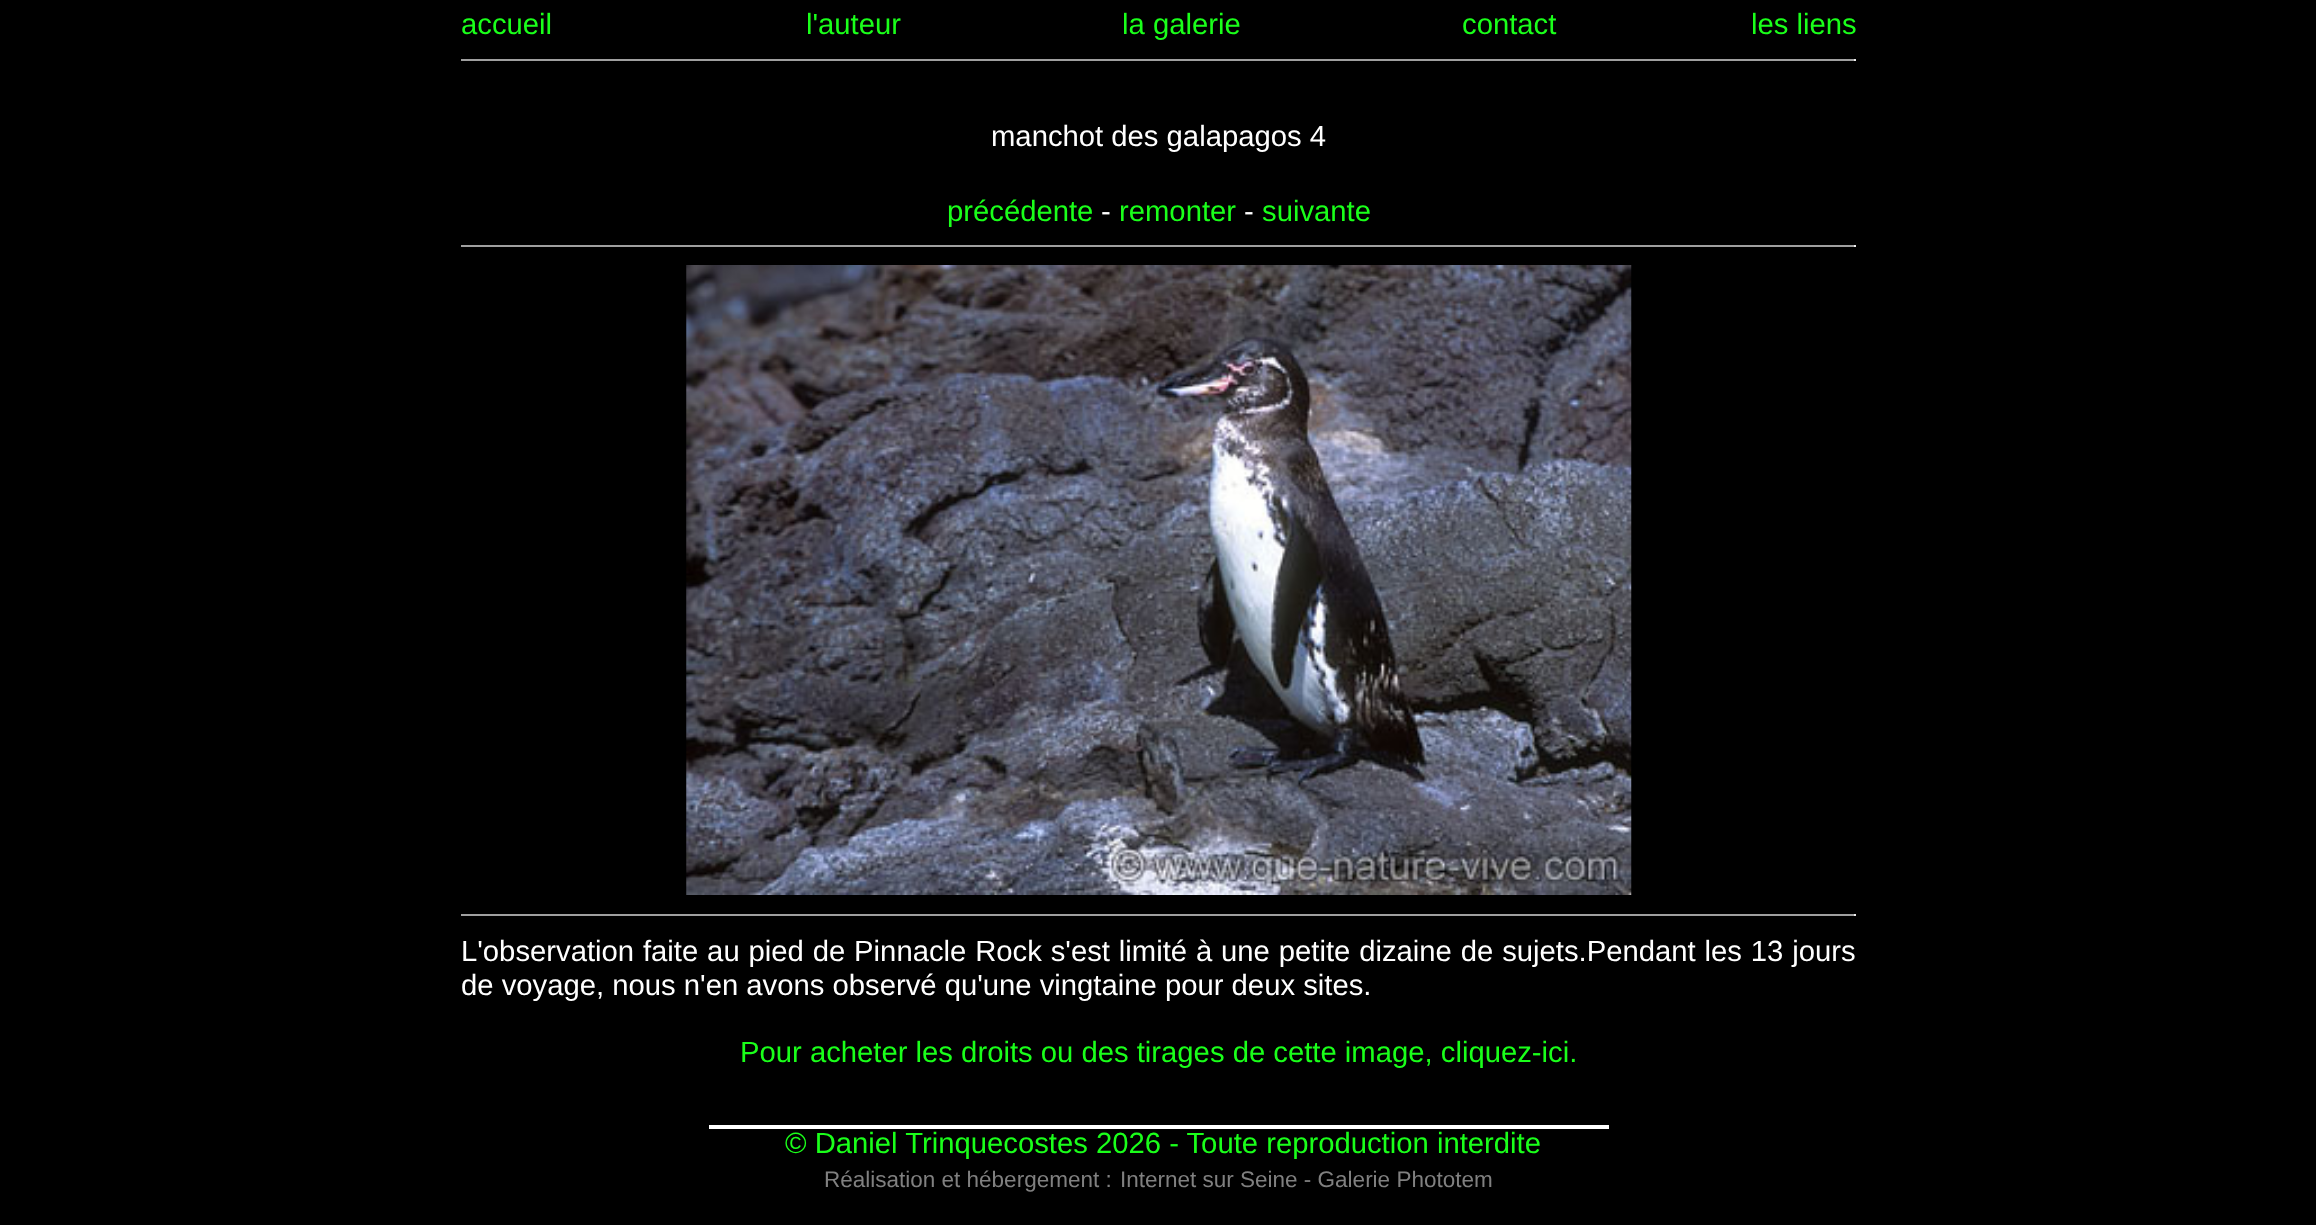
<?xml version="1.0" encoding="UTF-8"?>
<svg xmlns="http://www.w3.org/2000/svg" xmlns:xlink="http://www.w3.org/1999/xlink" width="2316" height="1225">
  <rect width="100%" height="100%" fill="#000000" />
  <rect x="461" y="59" width="1395" height="2" fill="#9f9f9f" />
  <rect x="1854" y="59" width="2" height="2" fill="#eeeeee" />
  <rect x="461" y="245" width="1395" height="2" fill="#9f9f9f" />
  <rect x="1854" y="245" width="2" height="2" fill="#eeeeee" />
  <image x="686" y="265" width="946" height="630" xlink:href="image1.png" />
  <rect x="461" y="914" width="1395" height="2" fill="#9f9f9f" />
  <rect x="1854" y="914" width="2" height="2" fill="#eeeeee" />
  <rect x="709" y="1125" width="900" height="4" fill="#ffffff" />
  <text x="461" y="34" style="font-family: Liberation Sans; font-size: 29.25px; fill: #1aff1a">accueil</text>
  <text x="806" y="34" style="font-family: Liberation Sans; font-size: 29.25px; fill: #1aff1a">l'auteur</text>
  <text x="1122" y="34" style="font-family: Liberation Sans; font-size: 29.25px; fill: #1aff1a">la galerie</text>
  <text x="1462" y="34" style="font-family: Liberation Sans; font-size: 29.25px; fill: #1aff1a">contact</text>
  <text x="1751" y="34" style="font-family: Liberation Sans; font-size: 29.25px; fill: #1aff1a">les liens</text>
  <text x="991" y="146" style="font-family: Liberation Sans; font-size: 29.25px; fill: #ffffff">manchot des galapagos 4</text>
  <text x="947" y="221" style="font-family: Liberation Sans; font-size: 29.25px; fill: #1aff1a">précédente</text>
  <text x="1101" y="221" style="font-family: Liberation Sans; font-size: 29.25px; fill: #ffffff">-</text>
  <text x="1119" y="221" style="font-family: Liberation Sans; font-size: 29.25px; fill: #1aff1a">remonter</text>
  <text x="1244" y="221" style="font-family: Liberation Sans; font-size: 29.25px; fill: #ffffff">-</text>
  <text x="1262" y="221" style="font-family: Liberation Sans; font-size: 29.25px; fill: #1aff1a">suivante</text>
  <text x="461" y="961" word-spacing="0.75" style="font-family: Liberation Sans; font-size: 29.25px; fill: #ffffff">L'observation faite au pied de Pinnacle Rock s'est limité à une petite dizaine de sujets.Pendant les 13 jours</text>
  <text x="461" y="995" style="font-family: Liberation Sans; font-size: 29.25px; fill: #ffffff">de voyage, nous n'en avons observé qu'une vingtaine pour deux sites.</text>
  <text x="740" y="1062" style="font-family: Liberation Sans; font-size: 29.25px; fill: #1aff1a">Pour acheter les droits ou des tirages de cette image, cliquez-ici.</text>
  <text x="785" y="1153" style="font-family: Liberation Sans; font-size: 29.25px; fill: #1aff1a">© Daniel Trinquecostes 2026 - Toute reproduction interdite</text>
  <text x="824" y="1187" style="font-family: Liberation Sans; font-size: 22.5px; fill: #808080">Réalisation et hébergement :</text>
  <text x="1120" y="1187" style="font-family: Liberation Sans; font-size: 22.5px; fill: #808080">Internet sur Seine - Galerie Phototem</text>
</svg>
